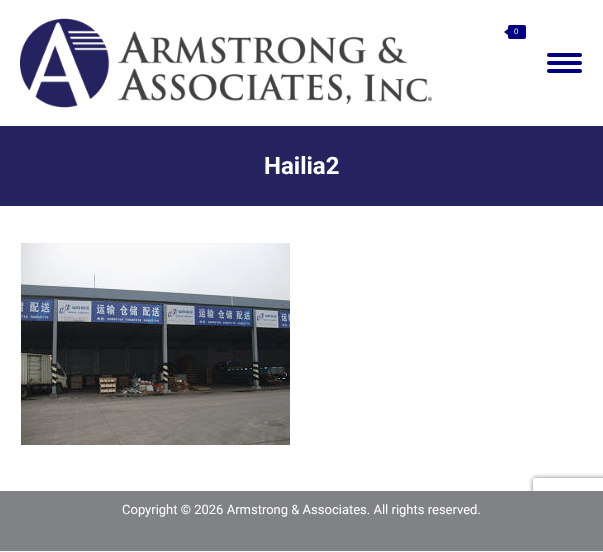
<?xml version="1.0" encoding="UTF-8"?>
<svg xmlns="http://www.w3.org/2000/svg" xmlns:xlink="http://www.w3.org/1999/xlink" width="603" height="552">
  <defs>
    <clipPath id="clip1"><path d="M 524 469 h 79 v 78 h -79 z m 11 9 h 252 c 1 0 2 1 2 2 v 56 c 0 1 -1 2 -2 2 h -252 c -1 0 -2 -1 -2 -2 v -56 c 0 -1 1 -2 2 -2 z" clip-rule="evenodd" /></clipPath>
  </defs>
  <rect width="100%" height="100%" fill="#f7f7f7" />
  <rect width="603" height="491" fill="#ffffff" />
  <image x="20" y="4" width="413" height="104" xlink:href="image1.png" />
  <rect x="508" y="25" width="18" height="14" rx="2" fill="#000080" />
  <path d="M 508 29 v 6 l -4 -3 z" fill="#000080" />
  <rect x="547" y="53" width="35" height="4" rx="2" fill="#000080" />
  <rect x="547" y="61" width="35" height="4" rx="2" fill="#000080" />
  <rect x="547" y="69" width="35" height="4" rx="2" fill="#000080" />
  <rect y="126" width="603" height="80" fill="#252260" />
  <image x="20" y="242" width="270" height="203" xlink:href="image2.png" />
  <g clip-path="url(#clip1)">
    <rect x="533" y="478" width="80" height="60" rx="2" fill="#808080" filter="blur(2.5px)" />
  </g>
  <rect y="491" width="603" height="60" fill="#818286" />
  <text x="514" y="34" style="font-family: Liberation Sans; font-size: 8px; fill: #ffffff">0</text>
  <text x="264" y="174" style="font-family: Roboto; font-size: 24px; font-weight: bold; fill: #ffffff">Hailia2</text>
  <text x="122" y="514" style="font-family: Roboto; font-size: 13px; fill: #ffffff">Copyright © 2026 Armstrong &amp; Associates. All rights reserved.</text>
</svg>
